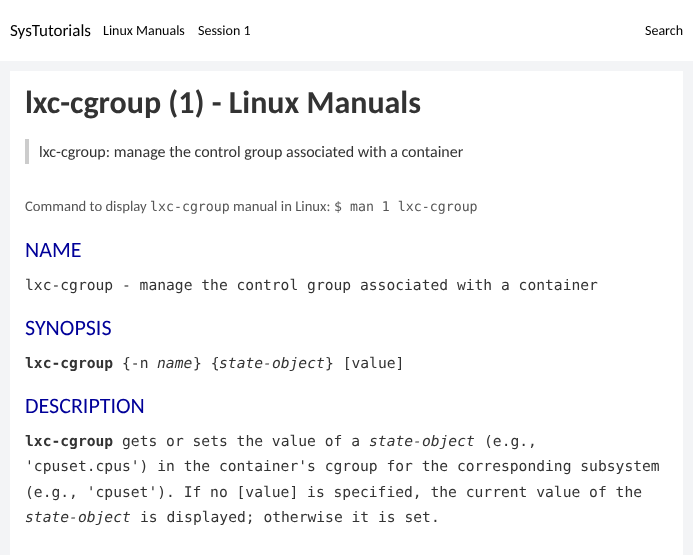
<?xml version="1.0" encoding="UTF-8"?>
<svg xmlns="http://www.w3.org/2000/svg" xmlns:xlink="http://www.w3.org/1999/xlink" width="693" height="555">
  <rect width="100%" height="100%" fill="#f3f4f6" />
  <rect width="693" height="61" fill="#ffffff" />
  <rect x="10" y="71" width="673" height="484" fill="#ffffff" />
  <rect x="25" y="139" width="4" height="25" fill="#cccccc" />
  <text x="10" y="36" style="font-family: Carlito; font-size: 17px; fill: #000000">SysTutorials</text>
  <text x="103" y="35" style="font-family: Carlito; font-size: 14px; fill: #000000">Linux Manuals</text>
  <text x="198" y="35" style="font-family: Carlito; font-size: 14px; fill: #000000">Session 1</text>
  <text x="645" y="35" style="font-family: Carlito; font-size: 14px; fill: #000000">Search</text>
  <text x="25" y="113" style="font-family: Carlito; font-size: 32px; font-weight: bold; fill: #333333">lxc-cgroup (1) - Linux Manuals</text>
  <text x="39" y="157" style="font-family: Carlito; font-size: 16px; fill: #333333">lxc-cgroup: manage the control group associated with a container</text>
  <text x="25" y="211" style="font-family: Carlito; font-size: 14.65px; fill: #555555">Command to display</text>
  <text x="150" y="211" style="font-family: DejaVu Sans Mono; font-size: 13.25px; fill: #555555">lxc-cgroup</text>
  <text x="233" y="211" style="font-family: Carlito; font-size: 14.65px; fill: #555555">manual in Linux:</text>
  <text x="334" y="211" style="font-family: DejaVu Sans Mono; font-size: 13.25px; fill: #555555">$ man 1 lxc-cgroup</text>
  <text x="25" y="257" style="font-family: Carlito; font-size: 22px; fill: #000099">NAME</text>
  <text x="25" y="290" style="font-family: DejaVu Sans Mono; font-size: 14.65px; fill: #333333">lxc-cgroup - manage the control group associated with a container</text>
  <text x="25" y="335" style="font-family: Carlito; font-size: 22px; fill: #000099">SYNOPSIS</text>
  <text x="25" y="368" style="font-family: DejaVu Sans Mono; font-size: 14.65px; font-weight: bold; fill: #333333">lxc-cgroup</text>
  <text x="122" y="368" style="font-family: DejaVu Sans Mono; font-size: 14.65px; fill: #333333">{-n</text>
  <text x="157" y="368" style="font-family: DejaVu Sans Mono; font-size: 14.65px; font-style: italic; fill: #333333">name</text>
  <text x="193" y="368" style="font-family: DejaVu Sans Mono; font-size: 14.65px; fill: #333333">} {</text>
  <text x="219" y="368" style="font-family: DejaVu Sans Mono; font-size: 14.65px; font-style: italic; fill: #333333">state-object</text>
  <text x="325" y="368" style="font-family: DejaVu Sans Mono; font-size: 14.65px; fill: #333333">} [value]</text>
  <text x="25" y="413" style="font-family: Carlito; font-size: 22px; fill: #000099">DESCRIPTION</text>
  <text x="25" y="446" style="font-family: DejaVu Sans Mono; font-size: 14.65px; font-weight: bold; fill: #333333">lxc-cgroup</text>
  <text x="122" y="446" style="font-family: DejaVu Sans Mono; font-size: 14.65px; fill: #333333">gets or sets the value of a</text>
  <text x="369" y="446" style="font-family: DejaVu Sans Mono; font-size: 14.65px; font-style: italic; fill: #333333">state-object</text>
  <text x="484" y="446" style="font-family: DejaVu Sans Mono; font-size: 14.65px; fill: #333333">(e.g.,</text>
  <text x="25" y="471" style="font-family: DejaVu Sans Mono; font-size: 14.65px; fill: #333333">'cpuset.cpus') in the container's cgroup for the corresponding subsystem</text>
  <text x="25" y="497" style="font-family: DejaVu Sans Mono; font-size: 14.65px; fill: #333333">(e.g., 'cpuset'). If no [value] is specified, the current value of the</text>
  <text x="25" y="522" style="font-family: DejaVu Sans Mono; font-size: 14.65px; font-style: italic; fill: #333333">state-object</text>
  <text x="140" y="522" style="font-family: DejaVu Sans Mono; font-size: 14.65px; fill: #333333">is displayed; otherwise it is set.</text>
</svg>
